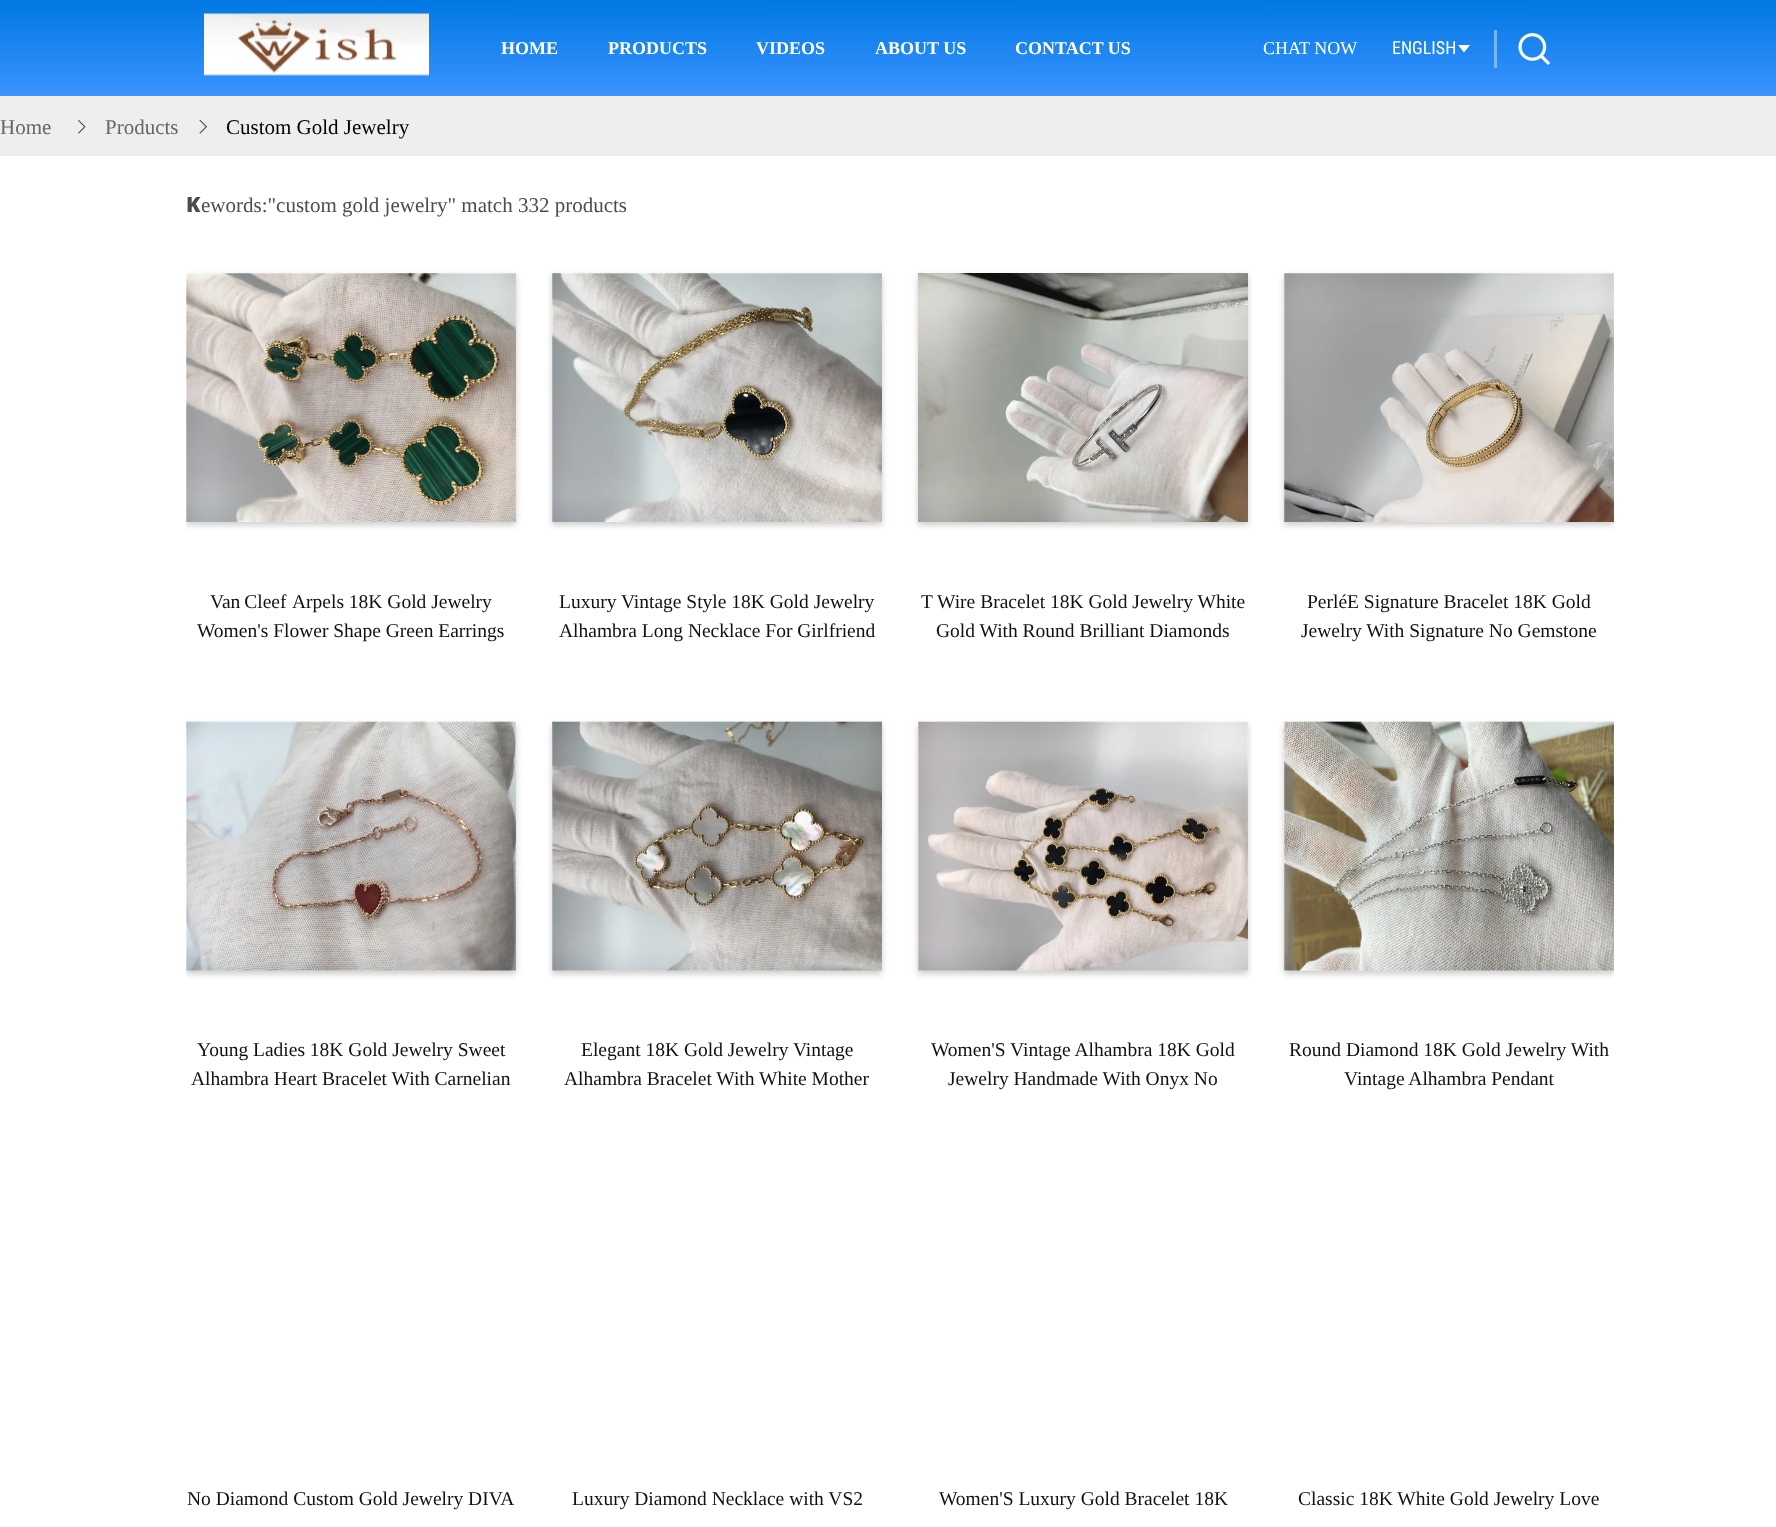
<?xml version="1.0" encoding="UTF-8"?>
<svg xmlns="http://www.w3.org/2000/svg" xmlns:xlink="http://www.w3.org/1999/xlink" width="1776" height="1527">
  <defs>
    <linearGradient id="g1" gradientUnits="userSpaceOnUse" x1="888" y1="0" x2="888" y2="96"><stop offset="0" stop-color="#0078e2" /><stop offset="1" stop-color="#3a93ff" /></linearGradient>
    <linearGradient id="g2" gradientUnits="userSpaceOnUse" x1="888" y1="0" x2="888" y2="96"><stop offset="0" stop-color="#66aeee" /><stop offset="1" stop-color="#89beff" /></linearGradient>
    <clipPath id="clip1"><rect x="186" y="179" width="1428" height="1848" /></clipPath>
  </defs>
  <rect width="100%" height="100%" fill="#ffffff" />
  <rect width="1776" height="96" fill="url(#g1)" />
  <rect x="1494" y="30" width="3" height="38" fill="url(#g2)" />
  <image x="204" y="13" width="225" height="63" xlink:href="image1.png" />
  <path d="M 1458 45 h 12 l -6 7.5 z" fill="#ffffff" />
  <image x="1518" y="33" width="32" height="32" xlink:href="image2.png" />
  <rect y="96" width="1776" height="60" fill="#eeeeee" />
  <image x="78" y="119" width="8" height="15" xlink:href="image3.png" />
  <image x="199" y="119" width="8" height="15" xlink:href="image4.png" />
  <g clip-path="url(#clip1)">
    <rect x="186" y="276" width="330" height="249" fill="#000000" fill-opacity="0.2" filter="blur(3px)" />
  </g>
  <image x="186" y="273" width="330" height="249" xlink:href="image5.png" />
  <rect x="552" y="276" width="330" height="249" fill="#000000" fill-opacity="0.2" filter="blur(3px)" />
  <image x="552" y="273" width="330" height="249" xlink:href="image6.png" />
  <rect x="918" y="276" width="330" height="249" fill="#000000" fill-opacity="0.2" filter="blur(3px)" />
  <image x="918" y="273" width="330" height="249" xlink:href="image7.png" />
  <g clip-path="url(#clip1)">
    <rect x="1284" y="276" width="330" height="249" fill="#000000" fill-opacity="0.2" filter="blur(3px)" />
  </g>
  <image x="1284" y="273" width="330" height="249" xlink:href="image8.png" />
  <g clip-path="url(#clip1)">
    <rect x="186" y="725" width="330" height="249" fill="#000000" fill-opacity="0.2" filter="blur(3px)" />
  </g>
  <image x="186" y="721" width="330" height="250" xlink:href="image9.png" />
  <rect x="552" y="725" width="330" height="249" fill="#000000" fill-opacity="0.2" filter="blur(3px)" />
  <image x="552" y="721" width="330" height="250" xlink:href="image10.png" />
  <rect x="918" y="725" width="330" height="249" fill="#000000" fill-opacity="0.2" filter="blur(3px)" />
  <image x="918" y="721" width="330" height="250" xlink:href="image11.png" />
  <g clip-path="url(#clip1)">
    <rect x="1284" y="725" width="330" height="249" fill="#000000" fill-opacity="0.2" filter="blur(3px)" />
  </g>
  <image x="1284" y="721" width="330" height="250" xlink:href="image12.png" />
  <text x="501" y="54" style="font-family: Liberation Serif; font-size: 18px; font-weight: bold; fill: #ffffff">HOME</text>
  <text x="608" y="54" style="font-family: Liberation Serif; font-size: 18px; font-weight: bold; fill: #ffffff">PRODUCTS</text>
  <text x="756" y="54" style="font-family: Liberation Serif; font-size: 18px; font-weight: bold; fill: #ffffff">VIDEOS</text>
  <text x="875" y="54" style="font-family: Liberation Serif; font-size: 18px; font-weight: bold; fill: #ffffff">ABOUT US</text>
  <text x="1015" y="54" style="font-family: Liberation Serif; font-size: 18px; font-weight: bold; fill: #ffffff">CONTACT US</text>
  <text x="1263" y="54" style="font-family: Liberation Serif; font-size: 18px; fill: #ffffff">CHAT NOW</text>
  <text x="1392" y="54" style="font-family: Roboto Condensed; font-size: 18px; fill: #ffffff">ENGLISH</text>
  <text x="0" y="134" style="font-family: Liberation Serif; font-size: 21px; fill: #666666">Home</text>
  <text x="105" y="134" style="font-family: Liberation Serif; font-size: 21px; fill: #666666">Products</text>
  <text x="226" y="134" style="font-family: Liberation Serif; font-size: 21px; fill: #000000">Custom Gold Jewelry</text>
  <text x="186" y="212" style="font-family: Noto Sans; font-size: 21px; font-weight: 900; fill: #4c4c4c">K</text>
  <text x="201" y="212" style="font-family: Liberation Serif; font-size: 21px; fill: #4c4c4c">ewords:"custom gold jewelry" match 332 products</text>
  <text x="210" y="608" word-spacing="-1" style="font-family: Liberation Serif; font-size: 19.5px; fill: #111111">Van Cleef</text>
  <text x="292" y="608" style="font-family: Liberation Serif; font-size: 19.5px; fill: #111111">Arpels 18K Gold Jewelry</text>
  <text x="197" y="637" style="font-family: Liberation Serif; font-size: 19.5px; fill: #111111">Women's Flower Shape Green Earrings</text>
  <text x="559" y="608" style="font-family: Liberation Serif; font-size: 19.5px; fill: #111111">Luxury Vintage Style 18K Gold Jewelry</text>
  <text x="559" y="637" style="font-family: Liberation Serif; font-size: 19.5px; fill: #111111">Alhambra Long Necklace For Girlfriend</text>
  <text x="921" y="608" style="font-family: Liberation Serif; font-size: 19.5px; fill: #111111">T Wire Bracelet 18K Gold Jewelry White</text>
  <text x="936" y="637" style="font-family: Liberation Serif; font-size: 19.5px; fill: #111111">Gold With Round Brilliant Diamonds</text>
  <text x="1307" y="608" style="font-family: Liberation Serif; font-size: 19.5px; fill: #111111">PerléE Signature Bracelet 18K Gold</text>
  <text x="1301" y="637" style="font-family: Liberation Serif; font-size: 19.5px; fill: #111111">Jewelry With Signature No Gemstone</text>
  <text x="197" y="1056" style="font-family: Liberation Serif; font-size: 19.5px; fill: #111111">Young Ladies 18K Gold Jewelry Sweet</text>
  <text x="191" y="1085" style="font-family: Liberation Serif; font-size: 19.5px; fill: #111111">Alhambra Heart Bracelet With Carnelian</text>
  <text x="581" y="1056" style="font-family: Liberation Serif; font-size: 19.5px; fill: #111111">Elegant 18K Gold Jewelry Vintage</text>
  <text x="564" y="1085" style="font-family: Liberation Serif; font-size: 19.5px; fill: #111111">Alhambra Bracelet With White Mother</text>
  <text x="931" y="1056" style="font-family: Liberation Serif; font-size: 19.5px; fill: #111111">Women'S Vintage Alhambra 18K Gold</text>
  <text x="948" y="1085" style="font-family: Liberation Serif; font-size: 19.5px; fill: #111111">Jewelry Handmade With Onyx No</text>
  <text x="1289" y="1056" style="font-family: Liberation Serif; font-size: 19.5px; fill: #111111">Round Diamond 18K Gold Jewelry With</text>
  <text x="1344" y="1085" style="font-family: Liberation Serif; font-size: 19.5px; fill: #111111">Vintage Alhambra Pendant</text>
  <text x="187" y="1505" style="font-family: Liberation Serif; font-size: 19.5px; fill: #111111">No Diamond Custom Gold Jewelry DIVA</text>
  <text x="572" y="1505" style="font-family: Liberation Serif; font-size: 19.5px; fill: #111111">Luxury Diamond Necklace with VS2</text>
  <text x="939" y="1505" style="font-family: Liberation Serif; font-size: 19.5px; fill: #111111">Women'S Luxury Gold Bracelet 18K</text>
  <text x="1298" y="1505" style="font-family: Liberation Serif; font-size: 19.5px; fill: #111111">Classic 18K White Gold Jewelry Love</text>
</svg>
